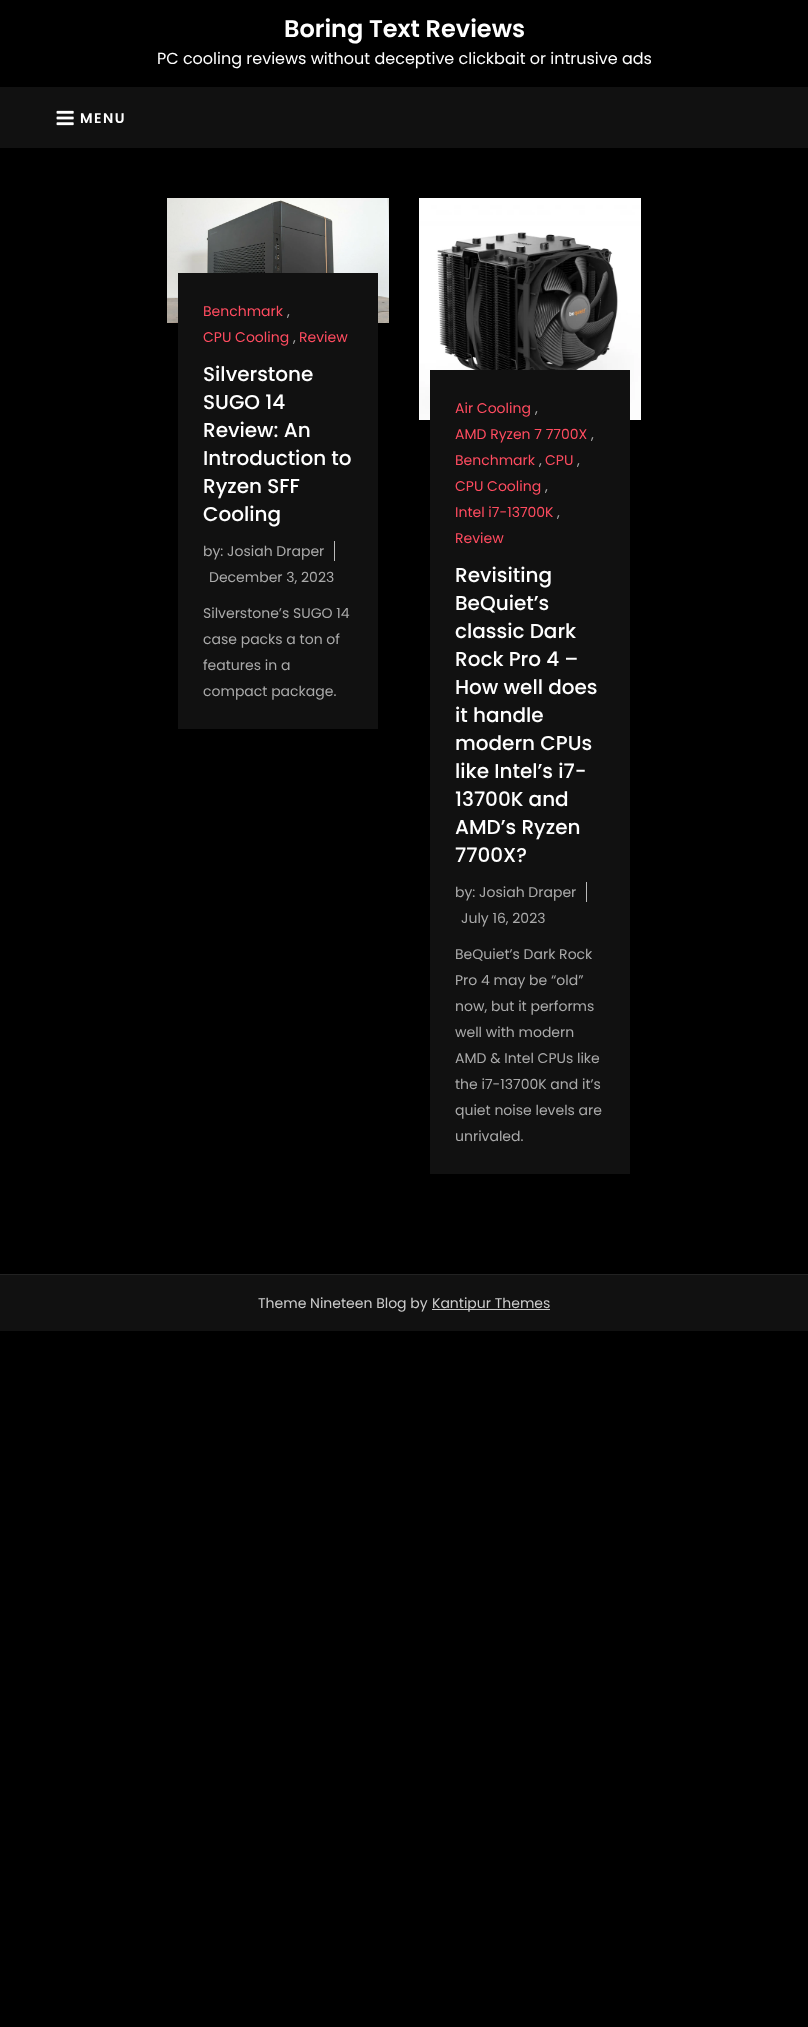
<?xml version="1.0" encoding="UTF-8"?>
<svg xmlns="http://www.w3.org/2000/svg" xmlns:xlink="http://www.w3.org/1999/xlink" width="808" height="2027">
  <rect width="100%" height="100%" fill="#000000" />
  <rect y="87" width="808" height="61" fill="#111111" />
  <image x="56" y="110" width="18" height="16" xlink:href="image1.png" />
  <image x="167" y="198" width="222" height="125" xlink:href="image2.png" />
  <rect x="178" y="273" width="200" height="456" fill="#111111" />
  <rect x="334" y="541" width="1" height="20" fill="#bbbbbb" />
  <image x="419" y="198" width="222" height="222" xlink:href="image3.png" />
  <rect x="430" y="370" width="200" height="804" fill="#111111" />
  <rect x="586" y="882" width="1" height="20" fill="#bbbbbb" />
  <rect y="1275" width="808" height="56" fill="#111111" />
  <rect y="1274" width="808" height="1" fill="#222222" />
  <rect x="432" y="1309" width="118" height="1" fill="#cccccc" />
  <text x="284" y="37" style="font-family: Poppins; font-size: 24px; font-weight: 600; fill: #ffffff">Boring Text Reviews</text>
  <text x="157" y="64" style="font-family: Poppins; font-size: 16px; fill: #ffffff">PC cooling reviews without deceptive clickbait or intrusive ads</text>
  <text x="80" y="123" style="font-family: Poppins; font-size: 14px; font-weight: 600; letter-spacing: 1.5px; fill: #ffffff">MENU</text>
  <text x="203" y="316" style="font-family: Poppins; font-size: 14px; fill: #ff4c60">Benchmark</text>
  <text x="287" y="316" style="font-family: Poppins; font-size: 14px; fill: #aaaaaa">,</text>
  <text x="203" y="342" style="font-family: Poppins; font-size: 14px; fill: #ff4c60">CPU Cooling</text>
  <text x="293" y="342" style="font-family: Poppins; font-size: 14px; fill: #aaaaaa">,</text>
  <text x="299" y="342" style="font-family: Poppins; font-size: 14px; fill: #ff4c60">Review</text>
  <text x="203" y="381" style="font-family: Poppins; font-size: 20px; font-weight: 500; fill: #ffffff">Silverstone</text>
  <text x="203" y="409" style="font-family: Poppins; font-size: 20px; font-weight: 500; fill: #ffffff">SUGO 14</text>
  <text x="203" y="437" style="font-family: Poppins; font-size: 20px; font-weight: 500; fill: #ffffff">Review: An</text>
  <text x="203" y="465" style="font-family: Poppins; font-size: 20px; font-weight: 500; fill: #ffffff">Introduction to</text>
  <text x="203" y="493" style="font-family: Poppins; font-size: 20px; font-weight: 500; fill: #ffffff">Ryzen SFF</text>
  <text x="203" y="521" style="font-family: Poppins; font-size: 20px; font-weight: 500; fill: #ffffff">Cooling</text>
  <text x="203" y="556" style="font-family: Poppins; font-size: 14px; fill: #aaaaaa">by: Josiah Draper</text>
  <text x="209" y="582" style="font-family: Poppins; font-size: 14px; fill: #aaaaaa">December 3, 2023</text>
  <text x="203" y="618" style="font-family: Poppins; font-size: 14px; fill: #aaaaaa">Silverstone’s SUGO 14</text>
  <text x="203" y="644" style="font-family: Poppins; font-size: 14px; fill: #aaaaaa">case packs a ton of</text>
  <text x="203" y="670" style="font-family: Poppins; font-size: 14px; fill: #aaaaaa">features in a</text>
  <text x="203" y="696" style="font-family: Poppins; font-size: 14px; fill: #aaaaaa">compact package.</text>
  <text x="455" y="413" style="font-family: Poppins; font-size: 14px; fill: #ff4c60">Air Cooling</text>
  <text x="535" y="413" style="font-family: Poppins; font-size: 14px; fill: #aaaaaa">,</text>
  <text x="455" y="439" style="font-family: Poppins; font-size: 14px; fill: #ff4c60">AMD Ryzen 7 7700X</text>
  <text x="591" y="439" style="font-family: Poppins; font-size: 14px; fill: #aaaaaa">,</text>
  <text x="455" y="465" style="font-family: Poppins; font-size: 14px; fill: #ff4c60">Benchmark</text>
  <text x="539" y="465" style="font-family: Poppins; font-size: 14px; fill: #aaaaaa">,</text>
  <text x="545" y="465" style="font-family: Poppins; font-size: 14px; fill: #ff4c60">CPU</text>
  <text x="577" y="465" style="font-family: Poppins; font-size: 14px; fill: #aaaaaa">,</text>
  <text x="455" y="491" style="font-family: Poppins; font-size: 14px; fill: #ff4c60">CPU Cooling</text>
  <text x="545" y="491" style="font-family: Poppins; font-size: 14px; fill: #aaaaaa">,</text>
  <text x="455" y="517" style="font-family: Poppins; font-size: 14px; fill: #ff4c60">Intel i7-13700K</text>
  <text x="557" y="517" style="font-family: Poppins; font-size: 14px; fill: #aaaaaa">,</text>
  <text x="455" y="543" style="font-family: Poppins; font-size: 14px; fill: #ff4c60">Review</text>
  <text x="455" y="582" style="font-family: Poppins; font-size: 20px; font-weight: 500; fill: #ffffff">Revisiting</text>
  <text x="455" y="610" style="font-family: Poppins; font-size: 20px; font-weight: 500; fill: #ffffff">BeQuiet’s</text>
  <text x="455" y="638" style="font-family: Poppins; font-size: 20px; font-weight: 500; fill: #ffffff">classic Dark</text>
  <text x="455" y="666" style="font-family: Poppins; font-size: 20px; font-weight: 500; fill: #ffffff">Rock Pro 4 –</text>
  <text x="455" y="694" style="font-family: Poppins; font-size: 20px; font-weight: 500; fill: #ffffff">How well does</text>
  <text x="455" y="722" style="font-family: Poppins; font-size: 20px; font-weight: 500; fill: #ffffff">it handle</text>
  <text x="455" y="750" style="font-family: Poppins; font-size: 20px; font-weight: 500; fill: #ffffff">modern CPUs</text>
  <text x="455" y="778" style="font-family: Poppins; font-size: 20px; font-weight: 500; fill: #ffffff">like Intel’s i7-</text>
  <text x="455" y="806" style="font-family: Poppins; font-size: 20px; font-weight: 500; fill: #ffffff">13700K and</text>
  <text x="455" y="834" style="font-family: Poppins; font-size: 20px; font-weight: 500; fill: #ffffff">AMD’s Ryzen</text>
  <text x="455" y="862" style="font-family: Poppins; font-size: 20px; font-weight: 500; fill: #ffffff">7700X?</text>
  <text x="455" y="897" style="font-family: Poppins; font-size: 14px; fill: #aaaaaa">by: Josiah Draper</text>
  <text x="461" y="923" style="font-family: Poppins; font-size: 14px; fill: #aaaaaa">July 16, 2023</text>
  <text x="455" y="959" style="font-family: Poppins; font-size: 14px; fill: #aaaaaa">BeQuiet’s Dark Rock</text>
  <text x="455" y="985" style="font-family: Poppins; font-size: 14px; fill: #aaaaaa">Pro 4 may be “old”</text>
  <text x="455" y="1011" style="font-family: Poppins; font-size: 14px; fill: #aaaaaa">now, but it performs</text>
  <text x="455" y="1037" style="font-family: Poppins; font-size: 14px; fill: #aaaaaa">well with modern</text>
  <text x="455" y="1063" style="font-family: Poppins; font-size: 14px; fill: #aaaaaa">AMD &amp; Intel CPUs like</text>
  <text x="455" y="1089" style="font-family: Poppins; font-size: 14px; fill: #aaaaaa">the i7-13700K and it’s</text>
  <text x="455" y="1115" style="font-family: Poppins; font-size: 14px; fill: #aaaaaa">quiet noise levels are</text>
  <text x="455" y="1141" style="font-family: Poppins; font-size: 14px; fill: #aaaaaa">unrivaled.</text>
  <text x="258" y="1308" style="font-family: Poppins; font-size: 14px; fill: #cccccc">Theme Nineteen Blog by</text>
  <text x="432" y="1308" style="font-family: Poppins; font-size: 14px; fill: #cccccc">Kantipur Themes</text>
</svg>
